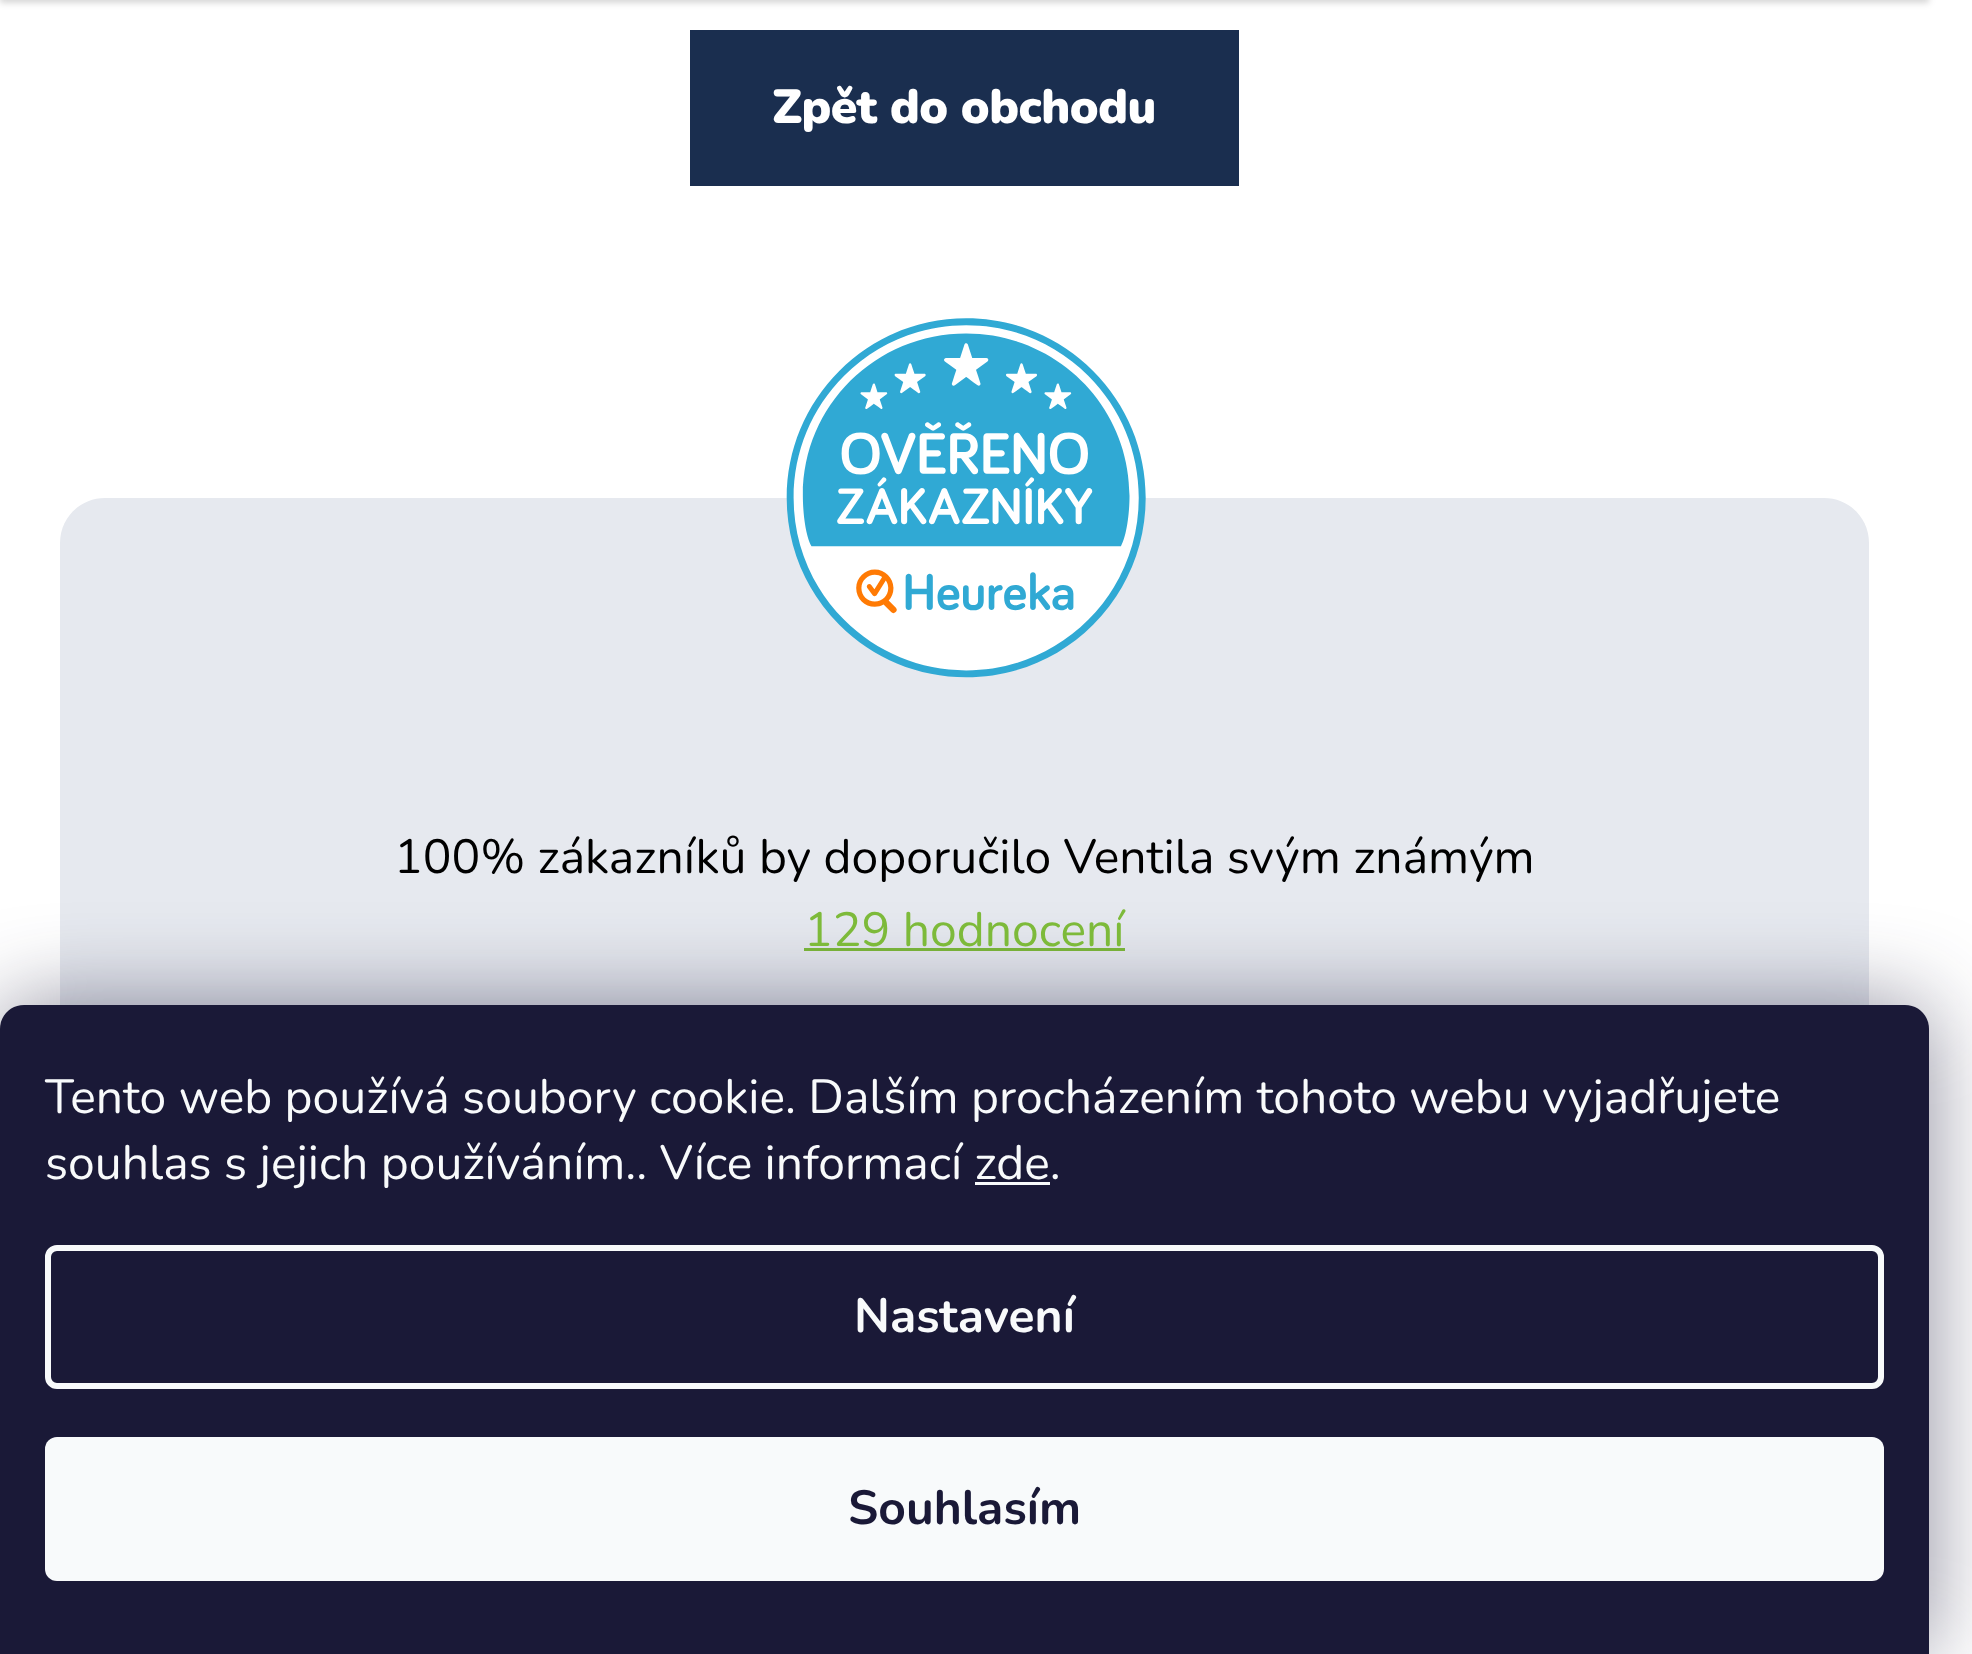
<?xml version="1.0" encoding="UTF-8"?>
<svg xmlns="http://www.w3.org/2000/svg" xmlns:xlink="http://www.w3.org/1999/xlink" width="1972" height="1654">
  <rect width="100%" height="100%" fill="#ffffff" />
  <rect y="-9" width="1929" height="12" fill="#000000" fill-opacity="0.16" filter="blur(3px)" />
  <rect x="690" y="30" width="549" height="156" fill="#1a2e4f" />
  <path d="M 105 498 h 1719 c 25 0 45 20 45 45 v 135 h -1809 v -135 c 0 -25 20 -45 45 -45 z" fill="#e6e9ef" />
  <image x="786" y="318" width="360" height="360" xlink:href="image1.png" />
  <rect x="60" y="678" width="1809" height="327" fill="#e6e9ef" />
  <rect x="804" y="948" width="321" height="3" fill="#7dba3a" />
  <rect y="1005" width="1929" height="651" rx="24" fill="#1b1939" fill-opacity="0.5" filter="blur(45px)" />
  <path d="M 24 1005 h 1881 c 13.5 0 24 10.5 24 24 v 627 h -1929 v -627 c 0 -13.5 10.5 -24 24 -24 z" fill="#1a1937" />
  <rect x="975" y="1182" width="75" height="3" fill="#f8fafb" />
  <rect x="48" y="1248" width="1833" height="138" rx="9" fill="none" stroke="#f8fafb" stroke-width="6" />
  <rect x="45" y="1437" width="1839" height="144" rx="12" fill="#f8fafb" />
  <text x="772" y="123" style="font-family: Nunito; font-size: 48px; font-weight: 900; letter-spacing: -0.5px; fill: #ffffff">Zpět do obchodu</text>
  <text x="394" y="873" style="font-family: Nunito; font-size: 48px; fill: #000000">100% zákazníků by doporučilo Ventila svým známým</text>
  <text x="804" y="946" style="font-family: Nunito; font-size: 48px; fill: #7dba3a">129 hodnocení</text>
  <text x="45" y="1113" style="font-family: Nunito; font-size: 48px; fill: #f8fafb">Tento web používá soubory cookie. Dalším procházením tohoto webu vyjadřujete</text>
  <text x="45" y="1179" style="font-family: Nunito; font-size: 48px; fill: #f8fafb">souhlas s jejich používáním.. Více informací zde.</text>
  <text x="854" y="1332" style="font-family: Nunito; font-size: 48px; font-weight: bold; fill: #f8fafb">Nastavení</text>
  <text x="848" y="1524" style="font-family: Nunito; font-size: 48px; font-weight: bold; fill: #1a1937">Souhlasím</text>
</svg>
